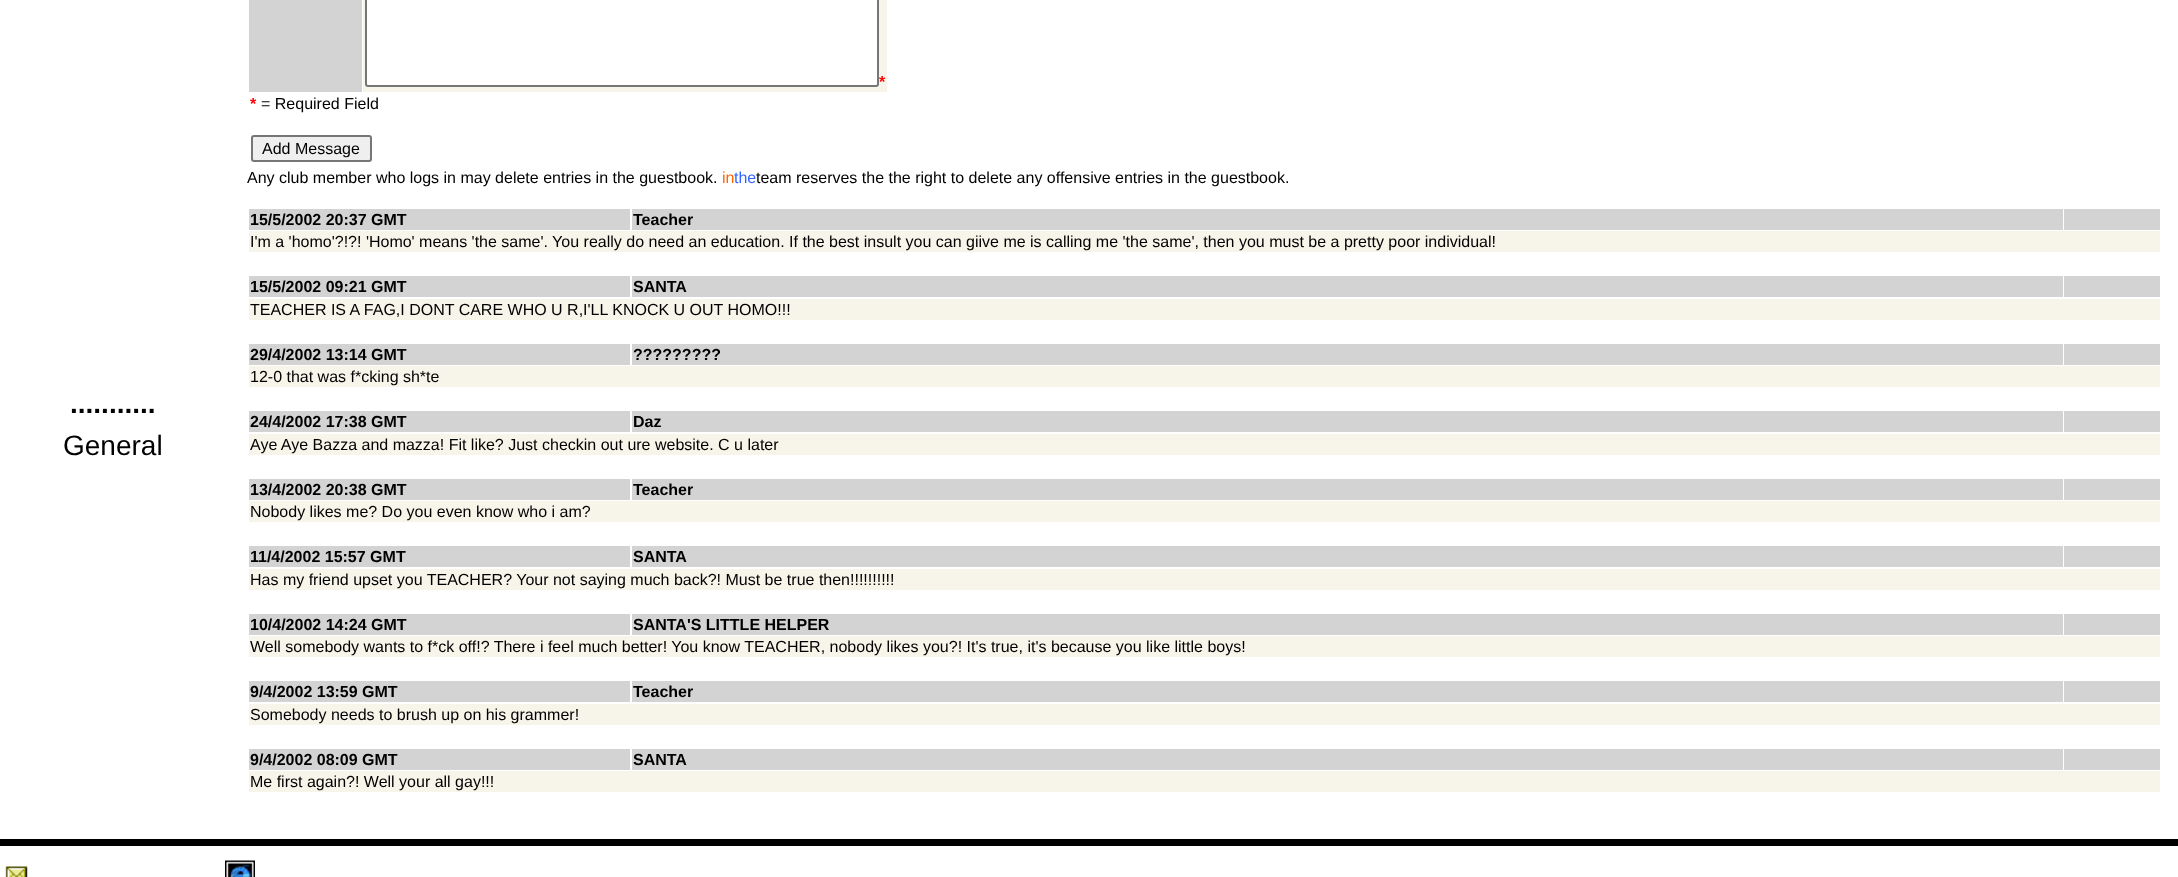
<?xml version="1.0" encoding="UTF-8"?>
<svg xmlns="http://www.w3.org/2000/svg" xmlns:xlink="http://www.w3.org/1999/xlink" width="2178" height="877">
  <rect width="100%" height="100%" fill="#ffffff" />
  <rect x="249" width="113" height="92" fill="#d3d3d3" />
  <rect x="363" width="524" height="92" fill="#f7f4e9" />
  <rect x="252" y="136" width="119" height="25" rx="2" fill="#efefef" stroke="#767676" stroke-width="2" />
  <rect x="249" y="209" width="381" height="21" fill="#d3d3d3" />
  <rect x="632" y="209" width="1431" height="21" fill="#d3d3d3" />
  <rect x="2064" y="209" width="96" height="21" fill="#d3d3d3" />
  <rect x="249" y="231" width="1911" height="21" fill="#f7f4e9" />
  <rect x="249" y="276" width="381" height="21" fill="#d3d3d3" />
  <rect x="632" y="276" width="1431" height="21" fill="#d3d3d3" />
  <rect x="2064" y="276" width="96" height="21" fill="#d3d3d3" />
  <rect x="249" y="299" width="1911" height="21" fill="#f7f4e9" />
  <rect x="249" y="344" width="381" height="21" fill="#d3d3d3" />
  <rect x="632" y="344" width="1431" height="21" fill="#d3d3d3" />
  <rect x="2064" y="344" width="96" height="21" fill="#d3d3d3" />
  <rect x="249" y="366" width="1911" height="21" fill="#f7f4e9" />
  <rect x="249" y="411" width="381" height="21" fill="#d3d3d3" />
  <rect x="632" y="411" width="1431" height="21" fill="#d3d3d3" />
  <rect x="2064" y="411" width="96" height="21" fill="#d3d3d3" />
  <rect x="249" y="434" width="1911" height="21" fill="#f7f4e9" />
  <rect x="249" y="479" width="381" height="21" fill="#d3d3d3" />
  <rect x="632" y="479" width="1431" height="21" fill="#d3d3d3" />
  <rect x="2064" y="479" width="96" height="21" fill="#d3d3d3" />
  <rect x="249" y="501" width="1911" height="21" fill="#f7f4e9" />
  <rect x="249" y="546" width="381" height="21" fill="#d3d3d3" />
  <rect x="632" y="546" width="1431" height="21" fill="#d3d3d3" />
  <rect x="2064" y="546" width="96" height="21" fill="#d3d3d3" />
  <rect x="249" y="569" width="1911" height="21" fill="#f7f4e9" />
  <rect x="249" y="614" width="381" height="21" fill="#d3d3d3" />
  <rect x="632" y="614" width="1431" height="21" fill="#d3d3d3" />
  <rect x="2064" y="614" width="96" height="21" fill="#d3d3d3" />
  <rect x="249" y="636" width="1911" height="21" fill="#f7f4e9" />
  <rect x="249" y="681" width="381" height="21" fill="#d3d3d3" />
  <rect x="632" y="681" width="1431" height="21" fill="#d3d3d3" />
  <rect x="2064" y="681" width="96" height="21" fill="#d3d3d3" />
  <rect x="249" y="704" width="1911" height="21" fill="#f7f4e9" />
  <rect x="249" y="749" width="381" height="21" fill="#d3d3d3" />
  <rect x="632" y="749" width="1431" height="21" fill="#d3d3d3" />
  <rect x="2064" y="749" width="96" height="21" fill="#d3d3d3" />
  <rect x="249" y="771" width="1911" height="21" fill="#f7f4e9" />
  <rect y="839" width="2178" height="7" fill="#000000" />
  <image x="5" y="866" width="23" height="11" xlink:href="image1.png" />
  <image x="225" y="860" width="30" height="17" xlink:href="image2.png" />
  <text x="70" y="413" style="font-family: Liberation Sans; font-size: 28px; font-weight: bold; fill: #000000">...........</text>
  <text x="63" y="455" style="font-family: Liberation Sans; font-size: 28px; fill: #000000">General</text>
  <text x="879" y="87" style="font-family: Liberation Sans; font-size: 16px; font-weight: bold; fill: #ff0000">*</text>
  <rect x="366" y="-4" width="512" height="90" rx="2" fill="#ffffff" stroke="#767676" stroke-width="2" />
  <text x="250" y="109" style="font-family: Liberation Sans; font-size: 16px; font-weight: bold; fill: #ff0000">*</text>
  <text x="261" y="109" style="font-family: Liberation Sans; font-size: 16px; fill: #000000">= Required Field</text>
  <text x="262" y="154" style="font-family: Liberation Sans; font-size: 16px; fill: #000000">Add Message</text>
  <text x="247" y="183" style="font-family: Liberation Sans; font-size: 16px; fill: #000000">Any club member who logs in may delete entries in the guestbook.</text>
  <text x="722" y="183" style="font-family: Liberation Sans; font-size: 16px; fill: #ff6600">in</text>
  <text x="734" y="183" style="font-family: Liberation Sans; font-size: 16px; fill: #3366ff">the</text>
  <text x="756" y="183" style="font-family: Liberation Sans; font-size: 16px; fill: #000000">team reserves the the right to delete any offensive entries in the guestbook.</text>
  <text x="250" y="225" style="font-family: Liberation Sans; font-size: 16px; font-weight: bold; fill: #000000">15/5/2002 20:37 GMT</text>
  <text x="633" y="225" style="font-family: Liberation Sans; font-size: 16px; font-weight: bold; fill: #000000">Teacher</text>
  <text x="250" y="247" style="font-family: Liberation Sans; font-size: 16px; fill: #000000">I'm a 'homo'?!?! 'Homo' means 'the same'. You really do need an education. If the best insult you can giive me is calling me 'the same', then you must be a pretty poor individual!</text>
  <text x="250" y="292" style="font-family: Liberation Sans; font-size: 16px; font-weight: bold; fill: #000000">15/5/2002 09:21 GMT</text>
  <text x="633" y="292" style="font-family: Liberation Sans; font-size: 16px; font-weight: bold; fill: #000000">SANTA</text>
  <text x="250" y="315" style="font-family: Liberation Sans; font-size: 16px; fill: #000000">TEACHER IS A FAG,I DONT CARE WHO U R,I'LL KNOCK U OUT HOMO!!!</text>
  <text x="250" y="360" style="font-family: Liberation Sans; font-size: 16px; font-weight: bold; fill: #000000">29/4/2002 13:14 GMT</text>
  <text x="633" y="360" style="font-family: Liberation Sans; font-size: 16px; font-weight: bold; fill: #000000">?????????</text>
  <text x="250" y="382" style="font-family: Liberation Sans; font-size: 16px; fill: #000000">12-0 that was f*cking sh*te</text>
  <text x="250" y="427" style="font-family: Liberation Sans; font-size: 16px; font-weight: bold; fill: #000000">24/4/2002 17:38 GMT</text>
  <text x="633" y="427" style="font-family: Liberation Sans; font-size: 16px; font-weight: bold; fill: #000000">Daz</text>
  <text x="250" y="450" style="font-family: Liberation Sans; font-size: 16px; fill: #000000">Aye Aye Bazza and mazza! Fit like? Just checkin out ure website. C u later</text>
  <text x="250" y="495" style="font-family: Liberation Sans; font-size: 16px; font-weight: bold; fill: #000000">13/4/2002 20:38 GMT</text>
  <text x="633" y="495" style="font-family: Liberation Sans; font-size: 16px; font-weight: bold; fill: #000000">Teacher</text>
  <text x="250" y="517" style="font-family: Liberation Sans; font-size: 16px; fill: #000000">Nobody likes me? Do you even know who i am?</text>
  <text x="250" y="562" style="font-family: Liberation Sans; font-size: 16px; font-weight: bold; fill: #000000">11/4/2002 15:57 GMT</text>
  <text x="633" y="562" style="font-family: Liberation Sans; font-size: 16px; font-weight: bold; fill: #000000">SANTA</text>
  <text x="250" y="585" style="font-family: Liberation Sans; font-size: 16px; fill: #000000">Has my friend upset you TEACHER? Your not saying much back?! Must be true then!!!!!!!!!!</text>
  <text x="250" y="630" style="font-family: Liberation Sans; font-size: 16px; font-weight: bold; fill: #000000">10/4/2002 14:24 GMT</text>
  <text x="633" y="630" style="font-family: Liberation Sans; font-size: 16px; font-weight: bold; fill: #000000">SANTA'S LITTLE HELPER</text>
  <text x="250" y="652" style="font-family: Liberation Sans; font-size: 16px; fill: #000000">Well somebody wants to f*ck off!? There i feel much better! You know TEACHER, nobody likes you?! It's true, it's because you like little boys!</text>
  <text x="250" y="697" style="font-family: Liberation Sans; font-size: 16px; font-weight: bold; fill: #000000">9/4/2002 13:59 GMT</text>
  <text x="633" y="697" style="font-family: Liberation Sans; font-size: 16px; font-weight: bold; fill: #000000">Teacher</text>
  <text x="250" y="720" style="font-family: Liberation Sans; font-size: 16px; fill: #000000">Somebody needs to brush up on his grammer!</text>
  <text x="250" y="765" style="font-family: Liberation Sans; font-size: 16px; font-weight: bold; fill: #000000">9/4/2002 08:09 GMT</text>
  <text x="633" y="765" style="font-family: Liberation Sans; font-size: 16px; font-weight: bold; fill: #000000">SANTA</text>
  <text x="250" y="787" style="font-family: Liberation Sans; font-size: 16px; fill: #000000">Me first again?! Well your all gay!!!</text>
</svg>
